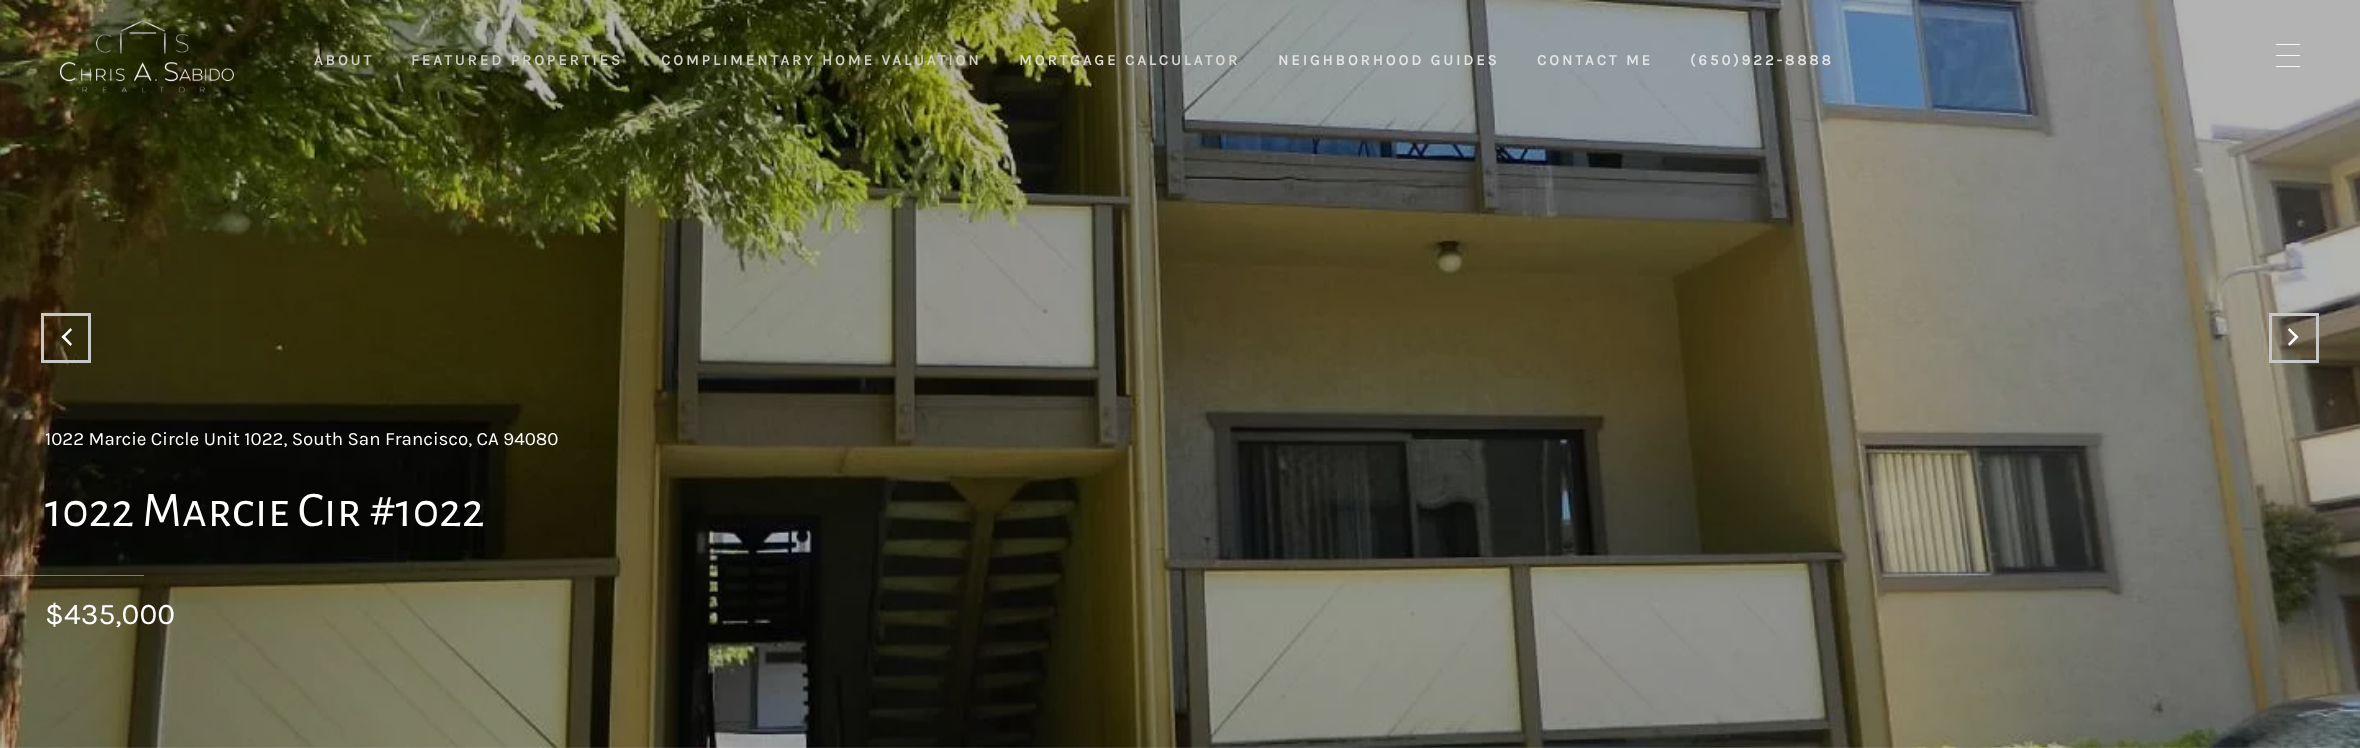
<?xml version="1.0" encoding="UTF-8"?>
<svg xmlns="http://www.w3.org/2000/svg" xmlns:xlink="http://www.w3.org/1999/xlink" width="2360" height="748">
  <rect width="100%" height="100%" fill="#ffffff" />
  <image x="0" y="0" width="2360" height="748" xlink:href="image2.png" />
  <image x="60" y="20" width="174" height="73" xlink:href="image1.png" />
  <rect x="2276" y="44" width="24" height="1" fill="#f7f7f7" />
  <rect x="2276" y="55" width="24" height="1" fill="#f7f7f7" />
  <rect x="2276" y="66" width="24" height="1" fill="#f7f7f7" />
  <rect x="42.5" y="314.5" width="47" height="47" fill="none" stroke="#c8c8c8" stroke-width="3" />
  <path d="M 72 344 l -1.5 2 l -9 -9 l 2 -2 z" fill="#ffffff" />
  <path d="M 72 330 l -8.5 8.5 l -2 -1.5 l 9 -9 z" fill="#ffffff" />
  <rect x="2270.5" y="314.5" width="47" height="47" fill="none" stroke="#c8c8c8" stroke-width="3" />
  <path d="M 2288 330 l 1.5 -2 l 9 9 l -2 1.5 z" fill="#ffffff" />
  <path d="M 2288 344 l 8.5 -9 l 2 2 l -9 9 z" fill="#ffffff" />
  <rect y="575" width="144" height="1" fill="#c8c8c8" fill-opacity="0.55" />
  <text x="314" y="65" style="font-family: Karla; font-size: 15px; font-weight: bold; letter-spacing: 3px; fill: #d1d2c8">ABOUT</text>
  <text x="411" y="65" style="font-family: Karla; font-size: 15px; font-weight: bold; letter-spacing: 3px; fill: #d1d2c8">FEATURED PROPERTIES</text>
  <text x="661" y="65" style="font-family: Karla; font-size: 15px; font-weight: bold; letter-spacing: 3px; fill: #d1d2c8">COMPLIMENTARY HOME VALUATION</text>
  <text x="1019" y="65" style="font-family: Karla; font-size: 15px; font-weight: bold; letter-spacing: 3px; fill: #dbdbd3">MORTGAGE CALCULATOR</text>
  <text x="1278" y="65" style="font-family: Karla; font-size: 15px; font-weight: bold; letter-spacing: 3px; fill: #e3e4e4">NEIGHBORHOOD GUIDES</text>
  <text x="1537" y="65" style="font-family: Karla; font-size: 15px; font-weight: bold; letter-spacing: 3px; fill: #e3e4e4">CONTACT ME</text>
  <text x="1690" y="65" style="font-family: Karla; font-size: 15px; font-weight: bold; letter-spacing: 3px; fill: #e3e4e4">(650)922-8888</text>
  <text x="45" y="445" style="font-family: Karla; font-size: 18.75px; fill: #ffffff">1022 Marcie Circle Unit 1022, South San Francisco, CA 94080</text>
  <text x="45" y="526" style="font-family: Alegreya Sans SC; font-size: 50px; fill: #ffffff">1022 Marcie Cir #1022</text>
  <text x="45" y="624" style="font-family: Karla; font-size: 30px; fill: #ffffff">$435,000</text>
</svg>
